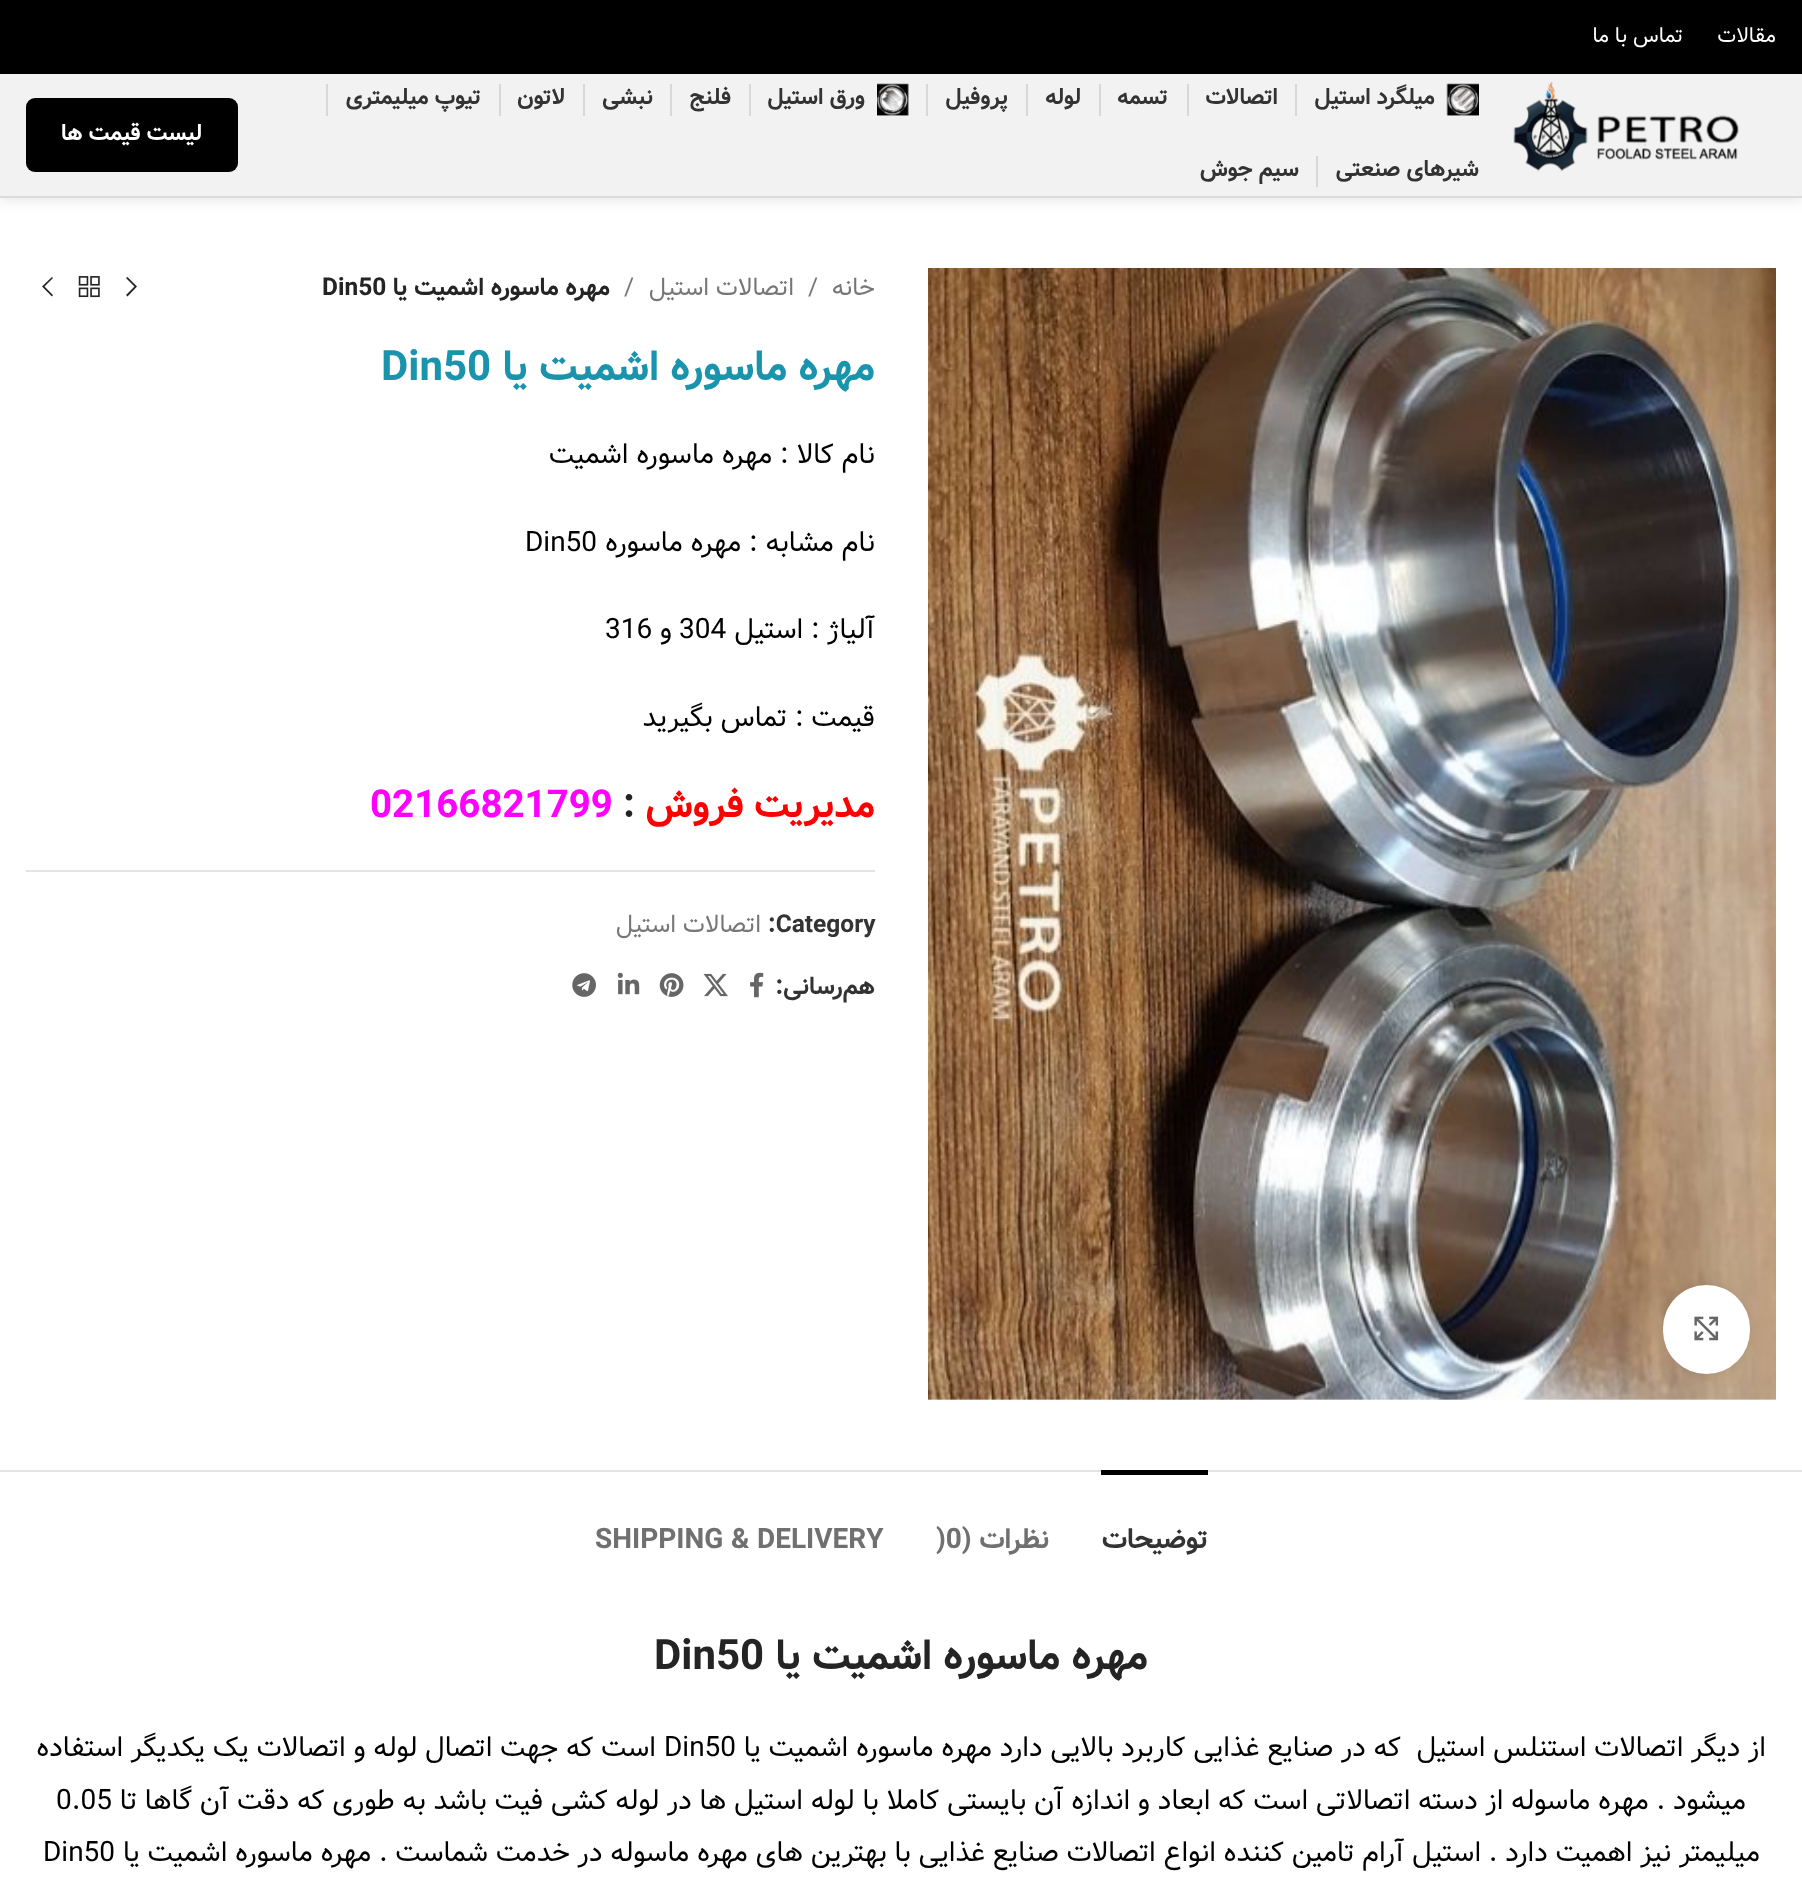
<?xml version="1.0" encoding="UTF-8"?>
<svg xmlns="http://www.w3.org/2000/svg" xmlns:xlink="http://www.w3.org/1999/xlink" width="1802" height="1880">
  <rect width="100%" height="100%" fill="#ffffff" />
  <rect width="1802" height="74" fill="#000000" />
  <rect y="75" width="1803" height="125" fill="#000000" fill-opacity="0.1" filter="blur(7px)" />
  <rect y="74" width="1802" height="122" fill="#f2f2f2" />
  <rect y="196" width="1802" height="2" fill="#dbdbdb" />
  <image x="1513" y="81" width="226" height="91" xlink:href="image1.png" />
  <image x="1446" y="83" width="33" height="33" xlink:href="image2.png" />
  <rect x="1295" y="84" width="2" height="32" fill="#d8d8d8" />
  <rect x="1187" y="84" width="2" height="32" fill="#d8d8d8" />
  <rect x="1099" y="84" width="2" height="32" fill="#d8d8d8" />
  <rect x="1026" y="84" width="2" height="32" fill="#d8d8d8" />
  <rect x="926" y="84" width="2" height="32" fill="#d8d8d8" />
  <image x="877" y="83" width="32" height="33" xlink:href="image3.png" />
  <rect x="749" y="84" width="2" height="32" fill="#d8d8d8" />
  <rect x="670" y="84" width="2" height="32" fill="#d8d8d8" />
  <rect x="583" y="84" width="2" height="32" fill="#d8d8d8" />
  <rect x="499" y="84" width="2" height="32" fill="#d8d8d8" />
  <rect x="326" y="84" width="2" height="32" fill="#d8d8d8" />
  <rect x="1316" y="156" width="2" height="31" fill="#d8d8d8" />
  <rect x="26" y="98" width="212" height="74" rx="9" fill="#000000" />
  <path d="M 26 159 v 4 c 0 5 4 9 9 9 h 194 c 5 0 9 -4 9 -9 v -4 c 0 5 -4 9 -9 9 h -194 c -5 0 -9 -4 -9 -9 z" fill="#000000" fill-opacity="0.15" />
  <image x="928" y="268" width="848" height="1132" xlink:href="image4.png" />
  <rect x="1663" y="1285" width="87" height="89" rx="43.5" fill="#000000" fill-opacity="0.08" filter="blur(4.5px)" />
  <rect x="1663" y="1285" width="87" height="89" rx="43.5" fill="#ffffff" />
  <image x="1694" y="1316" width="25" height="25" xlink:href="image5.png" />
  <path d="M 126 278 l 8.5 8.5 l -8.5 8.5 l 1.5 1.5 l 9.5 -10 l -9.5 -9.5 z" fill="#242424" />
  <image x="78" y="276" width="22" height="22" xlink:href="image6.png" />
  <path d="M 53 278 l -1 -1 l -10 9.5 l 10 10 l 1 -1.5 l -8.5 -8.5 z" fill="#242424" />
  <rect x="26" y="870" width="849" height="2" fill="#e4e4e4" />
  <image x="750" y="972" width="14" height="26" xlink:href="image7.png" />
  <image x="703" y="973" width="25" height="24" xlink:href="image8.png" />
  <image x="659" y="973" width="25" height="24" xlink:href="image9.png" />
  <image x="617" y="972" width="23" height="23" xlink:href="image10.png" />
  <image x="572" y="973" width="24" height="24" xlink:href="image11.png" />
  <rect y="1470" width="1802" height="2" fill="#e4e4e4" />
  <rect x="1101" y="1470" width="107" height="5" fill="#000000" />
  <text x="1776" y="42" style="font-family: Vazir; font-size: 21px; direction: rtl; fill: #ffffff">مقالات</text>
  <text x="1683" y="42" style="font-family: Vazir; font-size: 21px; direction: rtl; fill: #ffffff">تماس با ما</text>
  <text x="1435" y="104" style="font-family: Vazir; font-size: 22.75px; font-weight: bold; direction: rtl; fill: #333333">میلگرد استیل</text>
  <text x="1278" y="104" style="font-family: Vazir; font-size: 22.75px; font-weight: bold; direction: rtl; fill: #333333">اتصالات</text>
  <text x="1168" y="104" style="font-family: Vazir; font-size: 22.75px; font-weight: bold; direction: rtl; fill: #333333">تسمه</text>
  <text x="1081" y="104" style="font-family: Vazir; font-size: 22.75px; font-weight: bold; direction: rtl; fill: #333333">لوله</text>
  <text x="1008" y="104" style="font-family: Vazir; font-size: 22.75px; font-weight: bold; direction: rtl; fill: #333333">پروفیل</text>
  <text x="865" y="104" style="font-family: Vazir; font-size: 22.75px; font-weight: bold; direction: rtl; fill: #333333">ورق استیل</text>
  <text x="731" y="104" style="font-family: Vazir; font-size: 22.75px; font-weight: bold; direction: rtl; fill: #333333">فلنج</text>
  <text x="653" y="104" style="font-family: Vazir; font-size: 22.75px; font-weight: bold; direction: rtl; fill: #333333">نبشی</text>
  <text x="565" y="104" style="font-family: Vazir; font-size: 22.75px; font-weight: bold; direction: rtl; fill: #333333">لاتون</text>
  <text x="481" y="104" style="font-family: Vazir; font-size: 22.75px; font-weight: bold; direction: rtl; fill: #333333">تیوپ میلیمتری</text>
  <text x="1479" y="176" style="font-family: Vazir; font-size: 22.75px; font-weight: bold; direction: rtl; fill: #333333">شیرهای صنعتی</text>
  <text x="1299" y="176" style="font-family: Vazir; font-size: 22.75px; font-weight: bold; direction: rtl; fill: #333333">سیم جوش</text>
  <text x="202" y="140" style="font-family: Vazir; font-size: 22.75px; font-weight: bold; direction: rtl; fill: #ffffff">لیست قیمت ها</text>
  <text x="875" y="295" style="font-family: Vazir; font-size: 24.5px; direction: rtl; fill: #767676">خانه</text>
  <text x="808" y="295" style="font-family: Vazir; font-size: 24.5px; fill: #767676">/</text>
  <text x="794" y="295" style="font-family: Vazir; font-size: 24.5px; direction: rtl; fill: #767676">اتصالات استیل</text>
  <text x="624" y="295" style="font-family: Vazir; font-size: 24.5px; fill: #767676">/</text>
  <text x="610" y="295" style="font-family: Vazir; font-size: 24.5px; font-weight: bold; direction: rtl; fill: #242424">مهره ماسوره اشمیت یا</text>
  <text x="322" y="295" style="font-family: Vazir; font-size: 24.5px; font-weight: bold; fill: #242424">Din50</text>
  <text x="875" y="380" style="font-family: Vazir; font-size: 42px; font-weight: bold; direction: rtl; fill: #1a94ad">مهره ماسوره اشمیت یا</text>
  <text x="381" y="380" style="font-family: Vazir; font-size: 42px; font-weight: bold; fill: #1a94ad">Din50</text>
  <text x="875" y="463" style="font-family: Vazir; font-size: 28px; direction: rtl; fill: #000000">نام کالا : مهره ماسوره اشمیت</text>
  <text x="875" y="551" style="font-family: Vazir; font-size: 28px; direction: rtl; fill: #000000">نام مشابه : مهره ماسوره</text>
  <text x="525" y="551" style="font-family: Vazir; font-size: 28px; fill: #000000">Din50</text>
  <text x="875" y="638" style="font-family: Vazir; font-size: 28px; direction: rtl; fill: #000000">آلیاژ : استیل</text>
  <text x="679" y="638" style="font-family: Vazir; font-size: 28px; fill: #000000">304</text>
  <text x="672" y="638" style="font-family: Vazir; font-size: 28px; direction: rtl; fill: #000000">و</text>
  <text x="605" y="638" style="font-family: Vazir; font-size: 28px; fill: #000000">316</text>
  <text x="875" y="726" style="font-family: Vazir; font-size: 28px; direction: rtl; fill: #000000">قیمت : تماس بگیرید</text>
  <text x="875" y="817" style="font-family: Vazir; font-size: 38.5px; font-weight: bold; direction: rtl; fill: #ff0000">مدیریت فروش</text>
  <text x="623" y="817" style="font-family: Vazir; font-size: 38.5px; font-weight: bold; fill: #242424">:</text>
  <text x="370" y="817" style="font-family: Vazir; font-size: 38.5px; font-weight: bold; fill: #ff00ff">02166821799</text>
  <text x="768" y="932" style="font-family: Vazir; font-size: 24.5px; font-weight: bold; fill: #333333">:Category</text>
  <text x="761" y="932" style="font-family: Vazir; font-size: 24.5px; direction: rtl; fill: #767676">اتصالات استیل</text>
  <text x="875" y="994" style="font-family: Vazir; font-size: 24.5px; font-weight: bold; direction: rtl; fill: #333333">هم‌رسانی:</text>
  <text x="1208" y="1548" style="font-family: Vazir; font-size: 28px; font-weight: bold; direction: rtl; fill: #333333">توضیحات</text>
  <text x="1049" y="1548" style="font-family: Vazir; font-size: 28px; font-weight: bold; direction: rtl; fill: #707070">نظرات (</text>
  <text x="936" y="1548" style="font-family: Vazir; font-size: 28px; font-weight: bold; fill: #707070">)0</text>
  <text x="595" y="1548" style="font-family: Vazir; font-size: 28px; font-weight: bold; fill: #707070">SHIPPING &amp; DELIVERY</text>
  <text x="1148" y="1669" style="font-family: Vazir; font-size: 42px; font-weight: bold; direction: rtl; fill: #242424">مهره ماسوره اشمیت یا</text>
  <text x="654" y="1669" style="font-family: Vazir; font-size: 42px; font-weight: bold; fill: #242424">Din50</text>
  <text x="1766" y="1756" style="font-family: Vazir; font-size: 28px; direction: rtl; fill: #000000" xml:space="preserve">از دیگر اتصالات استنلس استیل  که در صنایع غذایی کاربرد بالایی دارد مهره ماسوره اشمیت یا</text>
  <text x="664" y="1756" style="font-family: Vazir; font-size: 28px; fill: #000000">Din50</text>
  <text x="656" y="1756" style="font-family: Vazir; font-size: 28px; direction: rtl; fill: #000000">است که جهت اتصال لوله و اتصالات یک یکدیگر استفاده</text>
  <text x="1746" y="1809" style="font-family: Vazir; font-size: 28px; direction: rtl; fill: #000000">میشود . مهره ماسوله از دسته اتصالاتی است که ابعاد و اندازه آن بایستی کاملا با لوله استیل ها در لوله کشی فیت باشد به طوری که دقت آن گاها تا</text>
  <text x="56" y="1809" style="font-family: Vazir; font-size: 28px; fill: #000000">0.05</text>
  <text x="1760" y="1861" style="font-family: Vazir; font-size: 28px; direction: rtl; fill: #000000">میلیمتر نیز اهمیت دارد . استیل آرام تامین کننده انواع اتصالات صنایع غذایی با بهترین های مهره ماسوله در خدمت شماست . مهره ماسوره اشمیت یا</text>
  <text x="43" y="1861" style="font-family: Vazir; font-size: 28px; fill: #000000">Din50</text>
</svg>
